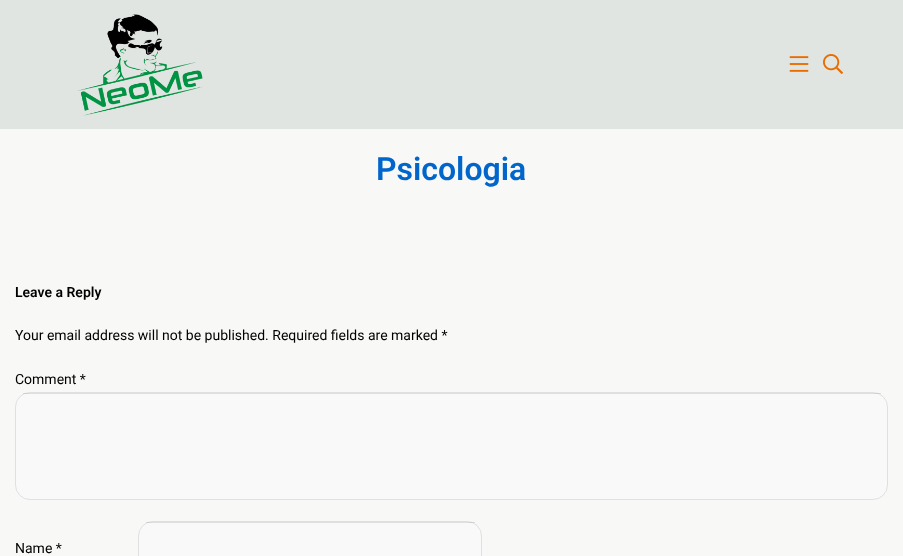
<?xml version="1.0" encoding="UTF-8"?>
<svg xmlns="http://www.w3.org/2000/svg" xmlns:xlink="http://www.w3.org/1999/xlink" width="903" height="556">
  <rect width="100%" height="100%" fill="#f8f8f6" />
  <rect width="903" height="129" fill="#e1e5e1" />
  <image x="77" y="14" width="126" height="102" xlink:href="image1.png" />
  <image x="789" y="56" width="20" height="16" xlink:href="image2.png" />
  <image x="823" y="54" width="20" height="20" xlink:href="image3.png" />
  <rect x="15.5" y="392.5" width="872" height="107" rx="14.5" fill="#f9f9f9" stroke="#e0e0e0" />
  <rect x="23" y="393" width="858" height="1" fill="#000000" fill-opacity="0.1" />
  <rect x="138.5" y="521.5" width="343" height="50" rx="14.5" fill="#f9f9f9" stroke="#e0e0e0" />
  <rect x="146" y="522" width="329" height="1" fill="#000000" fill-opacity="0.1" />
  <text x="376" y="180" style="font-family: Roboto; font-size: 32px; font-weight: 600; fill: #0066cc">Psicologia</text>
  <text x="15" y="297" style="font-family: Roboto; font-size: 14px; font-weight: 600; fill: #000000">Leave a Reply</text>
  <text x="15" y="340" style="font-family: Roboto; font-size: 14px; fill: #000000">Your email address will not be published. Required fields are marked *</text>
  <text x="15" y="384" style="font-family: Roboto; font-size: 14px; fill: #000000">Comment *</text>
  <text x="15" y="553" style="font-family: Roboto; font-size: 14px; fill: #000000">Name *</text>
</svg>
